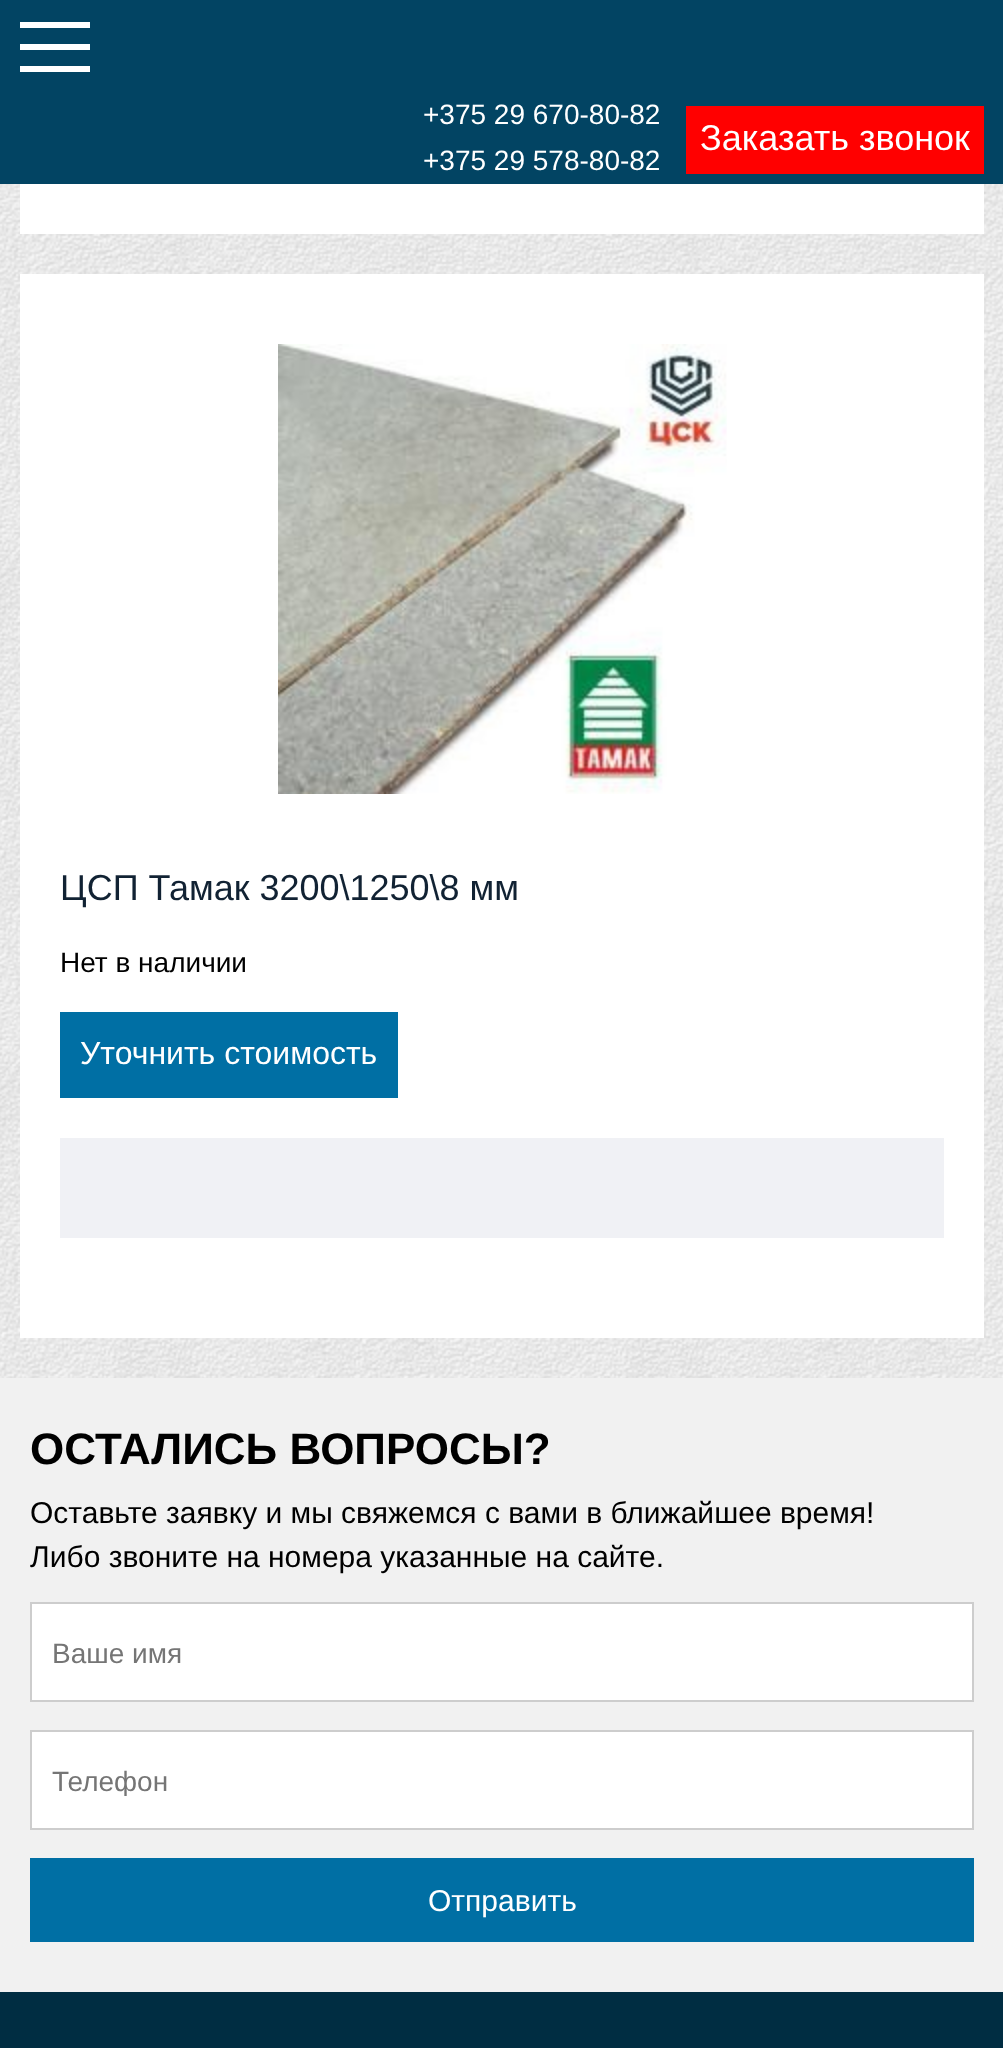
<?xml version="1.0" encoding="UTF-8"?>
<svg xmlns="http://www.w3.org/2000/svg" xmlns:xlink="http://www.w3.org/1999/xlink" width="1003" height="2048">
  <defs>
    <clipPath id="clip1"><rect x="52" y="1764" width="900" height="32" /></clipPath>
  </defs>
  <rect width="100%" height="100%" fill="#ffffff" />
  <image x="0" y="184" width="1003" height="1194" xlink:href="image1.png" />
  <rect width="1003" height="184" fill="#024463" />
  <rect x="20" y="22" width="70" height="6" fill="#ffffff" />
  <rect x="20" y="44" width="70" height="6" fill="#ffffff" />
  <rect x="20" y="66" width="70" height="6" fill="#ffffff" />
  <rect x="686" y="106" width="298" height="68" fill="#ff0000" />
  <rect x="20" y="184" width="964" height="50" fill="#ffffff" />
  <rect x="20" y="274" width="964" height="1064" fill="#ffffff" />
  <image x="278" y="344" width="449" height="450" xlink:href="image2.png" />
  <rect x="60" y="1012" width="338" height="86" fill="#006fa4" />
  <rect x="60" y="1138" width="884" height="100" fill="#f0f1f5" />
  <rect y="1378" width="1003" height="614" fill="#f1f1f1" />
  <rect x="31" y="1603" width="942" height="98" fill="#ffffff" stroke="#cdcdcd" stroke-width="2" />
  <rect x="31" y="1731" width="942" height="98" fill="#ffffff" stroke="#cdcdcd" stroke-width="2" />
  <rect x="30" y="1858" width="944" height="84" fill="#006fa4" />
  <rect y="1992" width="1003" height="56" fill="#002d42" />
  <text x="423" y="124" style="font-family: Liberation Sans; font-size: 28px; fill: #ffffff">+375 29 670-80-82</text>
  <text x="423" y="170" style="font-family: Liberation Sans; font-size: 28px; fill: #ffffff">+375 29 578-80-82</text>
  <text x="700" y="150" style="font-family: Liberation Sans; font-size: 36px; fill: #ffffff">Заказать звонок</text>
  <text x="60" y="900" style="font-family: Liberation Sans; font-size: 36px; fill: #112233">ЦСП Тамак 3200\1250\8 мм</text>
  <text x="60" y="972" style="font-family: Liberation Sans; font-size: 28px; fill: #000000">Нет в наличии</text>
  <text x="80" y="1064" style="font-family: Liberation Sans; font-size: 32px; fill: #ffffff">Уточнить стоимость</text>
  <text x="30" y="1464" style="font-family: Liberation Sans; font-size: 44px; font-weight: bold; fill: #000000">ОСТАЛИСЬ ВОПРОСЫ?</text>
  <text x="30" y="1523" style="font-family: Liberation Sans; font-size: 30px; fill: #000000">Оставьте заявку и мы свяжемся с вами в ближайшее время!</text>
  <text x="30" y="1567" style="font-family: Liberation Sans; font-size: 30px; fill: #000000">Либо звоните на номера указанные на сайте.</text>
  <text x="52" y="1663" style="font-family: Liberation Sans; font-size: 28px; fill: #757575">Ваше имя</text>
  <g clip-path="url(#clip1)">
    <text x="52" y="1791" style="font-family: Liberation Sans; font-size: 28px; fill: #757575">Телефон</text>
  </g>
  <text x="428" y="1911" style="font-family: Liberation Sans; font-size: 30px; fill: #ffffff">Отправить</text>
</svg>
